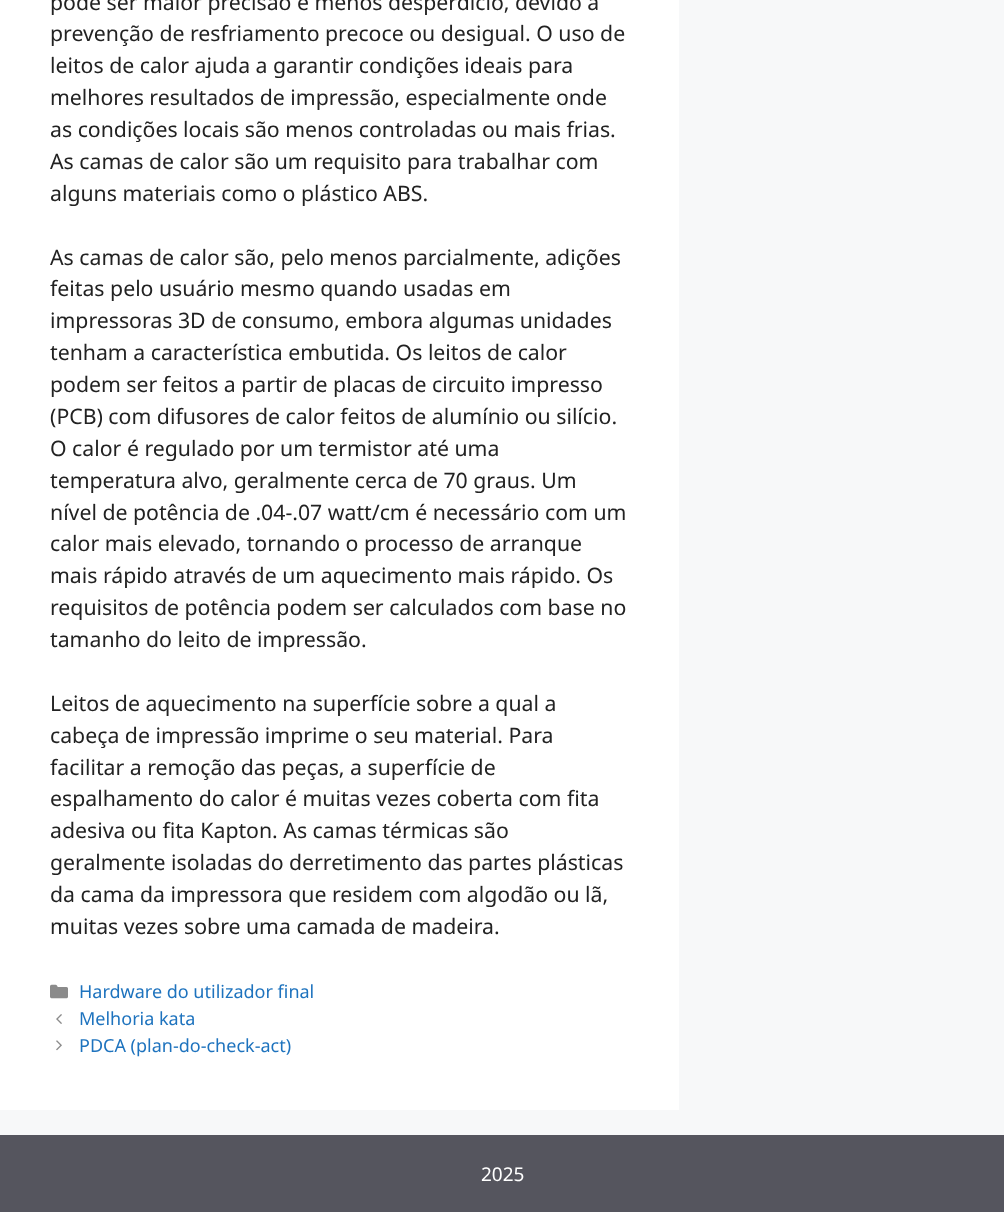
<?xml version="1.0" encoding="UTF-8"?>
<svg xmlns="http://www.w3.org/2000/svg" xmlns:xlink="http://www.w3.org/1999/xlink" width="1004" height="1212">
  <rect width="100%" height="100%" fill="#f7f8f9" />
  <rect width="679" height="1110" fill="#ffffff" />
  <image x="50" y="984" width="18" height="15" xlink:href="image1.png" />
  <image x="56" y="1014" width="6" height="10" xlink:href="image2.png" />
  <image x="56" y="1040" width="6" height="11" xlink:href="image3.png" />
  <rect y="1135" width="1004" height="77" fill="#55555e" />
  <text x="50" y="10" style="font-family: Noto Sans; font-size: 21.25px; fill: #222222">pode ser maior precisão e menos desperdício, devido à</text>
  <text x="50" y="41" style="font-family: Noto Sans; font-size: 21.25px; fill: #222222">prevenção de resfriamento precoce ou desigual. O uso de</text>
  <text x="50" y="73" style="font-family: Noto Sans; font-size: 21.25px; fill: #222222">leitos de calor ajuda a garantir condições ideais para</text>
  <text x="50" y="105" style="font-family: Noto Sans; font-size: 21.25px; fill: #222222">melhores resultados de impressão, especialmente onde</text>
  <text x="50" y="137" style="font-family: Noto Sans; font-size: 21.25px; fill: #222222">as condições locais são menos controladas ou mais frias.</text>
  <text x="50" y="169" style="font-family: Noto Sans; font-size: 21.25px; fill: #222222">As camas de calor são um requisito para trabalhar com</text>
  <text x="50" y="201" style="font-family: Noto Sans; font-size: 21.25px; fill: #222222">alguns materiais como o plástico ABS.</text>
  <text x="50" y="265" style="font-family: Noto Sans; font-size: 21.25px; fill: #222222">As camas de calor são, pelo menos parcialmente, adições</text>
  <text x="50" y="296" style="font-family: Noto Sans; font-size: 21.25px; fill: #222222">feitas pelo usuário mesmo quando usadas em</text>
  <text x="50" y="328" style="font-family: Noto Sans; font-size: 21.25px; fill: #222222">impressoras 3D de consumo, embora algumas unidades</text>
  <text x="50" y="360" style="font-family: Noto Sans; font-size: 21.25px; fill: #222222">tenham a característica embutida. Os leitos de calor</text>
  <text x="50" y="392" style="font-family: Noto Sans; font-size: 21.25px; fill: #222222">podem ser feitos a partir de placas de circuito impresso</text>
  <text x="50" y="424" style="font-family: Noto Sans; font-size: 21.25px; fill: #222222">(PCB) com difusores de calor feitos de alumínio ou silício.</text>
  <text x="50" y="456" style="font-family: Noto Sans; font-size: 21.25px; fill: #222222">O calor é regulado por um termistor até uma</text>
  <text x="50" y="488" style="font-family: Noto Sans; font-size: 21.25px; fill: #222222">temperatura alvo, geralmente cerca de 70 graus. Um</text>
  <text x="50" y="520" style="font-family: Noto Sans; font-size: 21.25px; fill: #222222">nível de potência de .04-.07 watt/cm é necessário com um</text>
  <text x="50" y="551" style="font-family: Noto Sans; font-size: 21.25px; fill: #222222">calor mais elevado, tornando o processo de arranque</text>
  <text x="50" y="583" style="font-family: Noto Sans; font-size: 21.25px; fill: #222222">mais rápido através de um aquecimento mais rápido. Os</text>
  <text x="50" y="615" style="font-family: Noto Sans; font-size: 21.25px; fill: #222222">requisitos de potência podem ser calculados com base no</text>
  <text x="50" y="647" style="font-family: Noto Sans; font-size: 21.25px; fill: #222222">tamanho do leito de impressão.</text>
  <text x="50" y="711" style="font-family: Noto Sans; font-size: 21.25px; fill: #222222">Leitos de aquecimento na superfície sobre a qual a</text>
  <text x="50" y="743" style="font-family: Noto Sans; font-size: 21.25px; fill: #222222">cabeça de impressão imprime o seu material. Para</text>
  <text x="50" y="775" style="font-family: Noto Sans; font-size: 21.25px; fill: #222222">facilitar a remoção das peças, a superfície de</text>
  <text x="50" y="806" style="font-family: Noto Sans; font-size: 21.25px; fill: #222222">espalhamento do calor é muitas vezes coberta com fita</text>
  <text x="50" y="838" style="font-family: Noto Sans; font-size: 21.25px; fill: #222222">adesiva ou fita Kapton. As camas térmicas são</text>
  <text x="50" y="870" style="font-family: Noto Sans; font-size: 21.25px; fill: #222222">geralmente isoladas do derretimento das partes plásticas</text>
  <text x="50" y="902" style="font-family: Noto Sans; font-size: 21.25px; fill: #222222">da cama da impressora que residem com algodão ou lã,</text>
  <text x="50" y="934" style="font-family: Noto Sans; font-size: 21.25px; fill: #222222">muitas vezes sobre uma camada de madeira.</text>
  <text x="79" y="998" style="font-family: Noto Sans; font-size: 18px; fill: #1e73be">Hardware do utilizador final</text>
  <text x="79" y="1025" style="font-family: Noto Sans; font-size: 18px; fill: #1e73be">Melhoria kata</text>
  <text x="79" y="1052" style="font-family: Noto Sans; font-size: 18px; fill: #1e73be">PDCA (plan-do-check-act)</text>
  <text x="481" y="1181" style="font-family: Noto Sans; font-size: 19px; fill: #ffffff">2025</text>
</svg>
